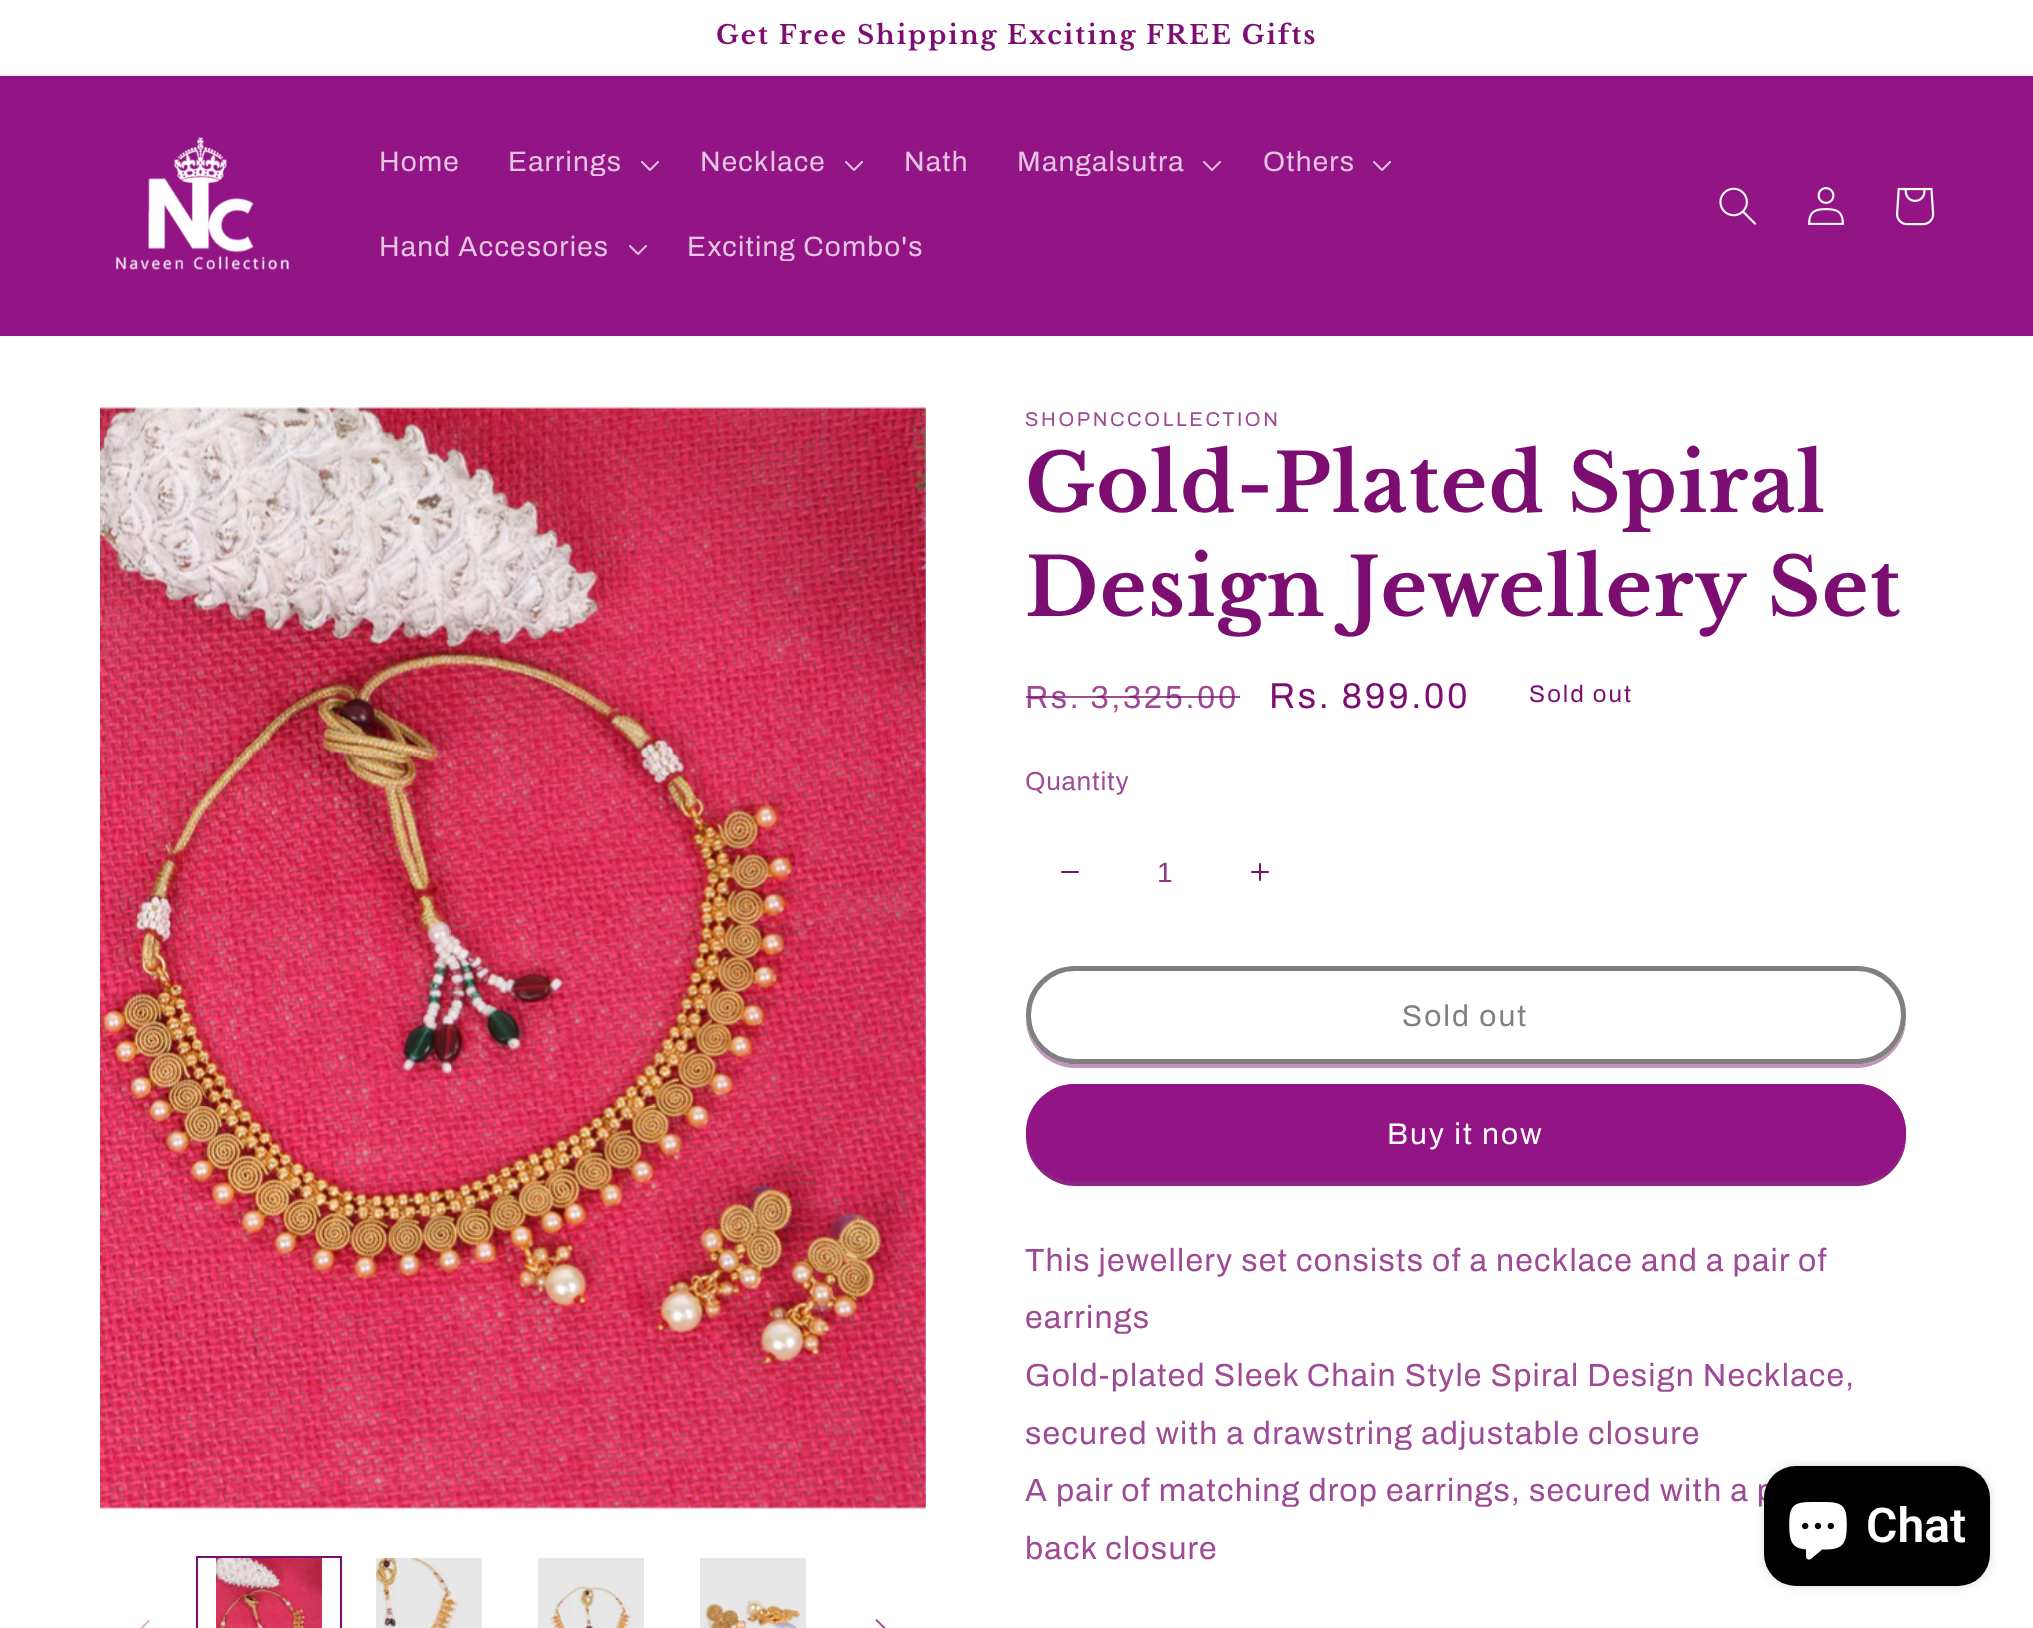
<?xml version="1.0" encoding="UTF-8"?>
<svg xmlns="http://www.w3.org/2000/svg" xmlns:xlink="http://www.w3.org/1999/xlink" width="2033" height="1628">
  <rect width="100%" height="100%" fill="#ffffff" />
  <rect y="74" width="2033" height="2" fill="#f5ecf4" />
  <rect y="76" width="2033" height="260" fill="#931485" />
  <image x="115" y="137" width="175" height="133" xlink:href="image1.png" />
  <image x="641" y="161" width="18" height="10" xlink:href="image2.png" />
  <image x="845" y="161" width="18" height="10" xlink:href="image2.png" />
  <image x="1203" y="161" width="18" height="10" xlink:href="image2.png" />
  <image x="1373" y="161" width="18" height="10" xlink:href="image2.png" />
  <image x="629" y="245" width="18" height="10" xlink:href="image2.png" />
  <image x="1719" y="187" width="37" height="38" xlink:href="image3.png" />
  <image x="1808" y="187" width="36" height="38" xlink:href="image4.png" />
  <image x="1896" y="187" width="39" height="39" xlink:href="image5.png" />
  <image x="100" y="407" width="826" height="1102" xlink:href="image6.png" />
  <image x="140" y="1619" width="10" height="9" xlink:href="image7.png" />
  <rect x="197" y="1557" width="144" height="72" fill="none" stroke="#7d0e71" stroke-width="2" />
  <image x="216" y="1558" width="106" height="70" xlink:href="image8.png" />
  <image x="376" y="1558" width="106" height="70" xlink:href="image9.png" />
  <image x="538" y="1558" width="106" height="70" xlink:href="image10.png" />
  <image x="700" y="1558" width="106" height="70" xlink:href="image11.png" />
  <image x="875" y="1619" width="11" height="9" xlink:href="image12.png" />
  <image x="1061" y="871" width="18" height="2" xlink:href="image13.png" />
  <image x="1251" y="863" width="18" height="18" xlink:href="image14.png" />
  <path d="M 1026 1017 c -1 28 22 51 49 51 h 782 c 27 0 50 -23 49 -51 c -1 26 -23 47 -49 47 h -782 c -26 0 -48 -21 -49 -47 z" fill="#c593bf" />
  <rect x="1028" y="968" width="876" height="94" rx="47" fill="none" stroke="#ffffff" stroke-width="4" />
  <rect x="1028.5" y="968.5" width="875" height="93" rx="46.5" fill="none" stroke="#808080" stroke-width="5" />
  <path d="M 1026 1135 c -1 28 22 51 49 51 h 782 c 27 0 50 -23 49 -51 c -1 26 -23 47 -49 47 h -782 c -26 0 -48 -21 -49 -47 z" fill="#8a267f" />
  <rect x="1026" y="1084" width="880" height="98" rx="49" fill="#931485" />
  <rect x="1028" y="1086" width="876" height="94" rx="47" fill="none" stroke="#931485" stroke-width="4" />
  <rect x="1764" y="1466" width="226" height="120" rx="32" fill="#000000" fill-opacity="0.15" filter="blur(5px)" />
  <text x="716" y="44" style="font-family: Libre Baskerville; font-size: 26px; font-weight: bold; letter-spacing: 2px; fill: #7d0e71">Get Free Shipping Exciting FREE Gifts</text>
  <text x="379" y="171" style="font-family: Archivo; font-size: 28px; letter-spacing: 1.2px; fill: #e4c4e1">Home</text>
  <text x="508" y="171" style="font-family: Archivo; font-size: 28px; letter-spacing: 1.2px; fill: #e4c4e1">Earrings</text>
  <text x="700" y="171" style="font-family: Archivo; font-size: 28px; letter-spacing: 1.2px; fill: #e4c4e1">Necklace</text>
  <text x="904" y="171" style="font-family: Archivo; font-size: 28px; letter-spacing: 1.2px; fill: #e4c4e1">Nath</text>
  <text x="1017" y="171" style="font-family: Archivo; font-size: 28px; letter-spacing: 1.2px; fill: #e4c4e1">Mangalsutra</text>
  <text x="1263" y="171" style="font-family: Archivo; font-size: 28px; letter-spacing: 1.2px; fill: #e4c4e1">Others</text>
  <text x="379" y="256" style="font-family: Archivo; font-size: 28px; letter-spacing: 1.2px; fill: #e4c4e1">Hand Accesories</text>
  <text x="687" y="256" style="font-family: Archivo; font-size: 28px; letter-spacing: 1.2px; fill: #e4c4e1">Exciting Combo's</text>
  <text x="1025" y="426" style="font-family: Archivo; font-size: 20px; letter-spacing: 2.6px; fill: #9e4a95">SHOPNCCOLLECTION</text>
  <text x="1025" y="512" style="font-family: Libre Baskerville; font-size: 80px; font-weight: bold; letter-spacing: 1.2px; fill: #7d0e71">Gold-Plated Spiral</text>
  <text x="1025" y="616" style="font-family: Libre Baskerville; font-size: 80px; font-weight: bold; letter-spacing: 1.2px; fill: #7d0e71">Design Jewellery Set</text>
  <text x="1025" y="708" style="font-family: Archivo; font-size: 32px; letter-spacing: 2.6px; fill: #9e4a95">Rs. 3,325.00</text>
  <rect x="1026" y="696" width="214" height="2" fill="#7d0e71" fill-opacity="0.75" />
  <text x="1269" y="708" style="font-family: Archivo; font-size: 36px; letter-spacing: 2.6px; fill: #7d0e71">Rs. 899.00</text>
  <text x="1529" y="702" style="font-family: Archivo; font-size: 24px; letter-spacing: 2px; fill: #7d0e71">Sold out</text>
  <text x="1025" y="790" style="font-family: Archivo; font-size: 26px; letter-spacing: 0.75px; fill: #9e4a95">Quantity</text>
  <text x="1157" y="882" style="font-family: Liberation Sans; font-size: 28px; fill: #913286">1</text>
  <text x="1402" y="1026" style="font-family: Archivo; font-size: 30px; letter-spacing: 2px; fill: #808080">Sold out</text>
  <text x="1387" y="1144" style="font-family: Archivo; font-size: 30px; letter-spacing: 2px; fill: #ffffff">Buy it now</text>
  <text x="1025" y="1271" style="font-family: Archivo; font-size: 32px; letter-spacing: 1.2px; fill: #9e4a95">This jewellery set consists of a necklace and a pair of</text>
  <text x="1025" y="1328" style="font-family: Archivo; font-size: 32px; letter-spacing: 1.2px; fill: #9e4a95">earrings</text>
  <text x="1025" y="1386" style="font-family: Archivo; font-size: 32px; letter-spacing: 1.2px; fill: #9e4a95">Gold-plated Sleek Chain Style Spiral Design Necklace,</text>
  <text x="1025" y="1444" style="font-family: Archivo; font-size: 32px; letter-spacing: 1.2px; fill: #9e4a95">secured with a drawstring adjustable closure</text>
  <text x="1025" y="1501" style="font-family: Archivo; font-size: 32px; letter-spacing: 1.2px; fill: #9e4a95">A pair of matching drop earrings, secured with a p</text>
  <text x="1025" y="1559" style="font-family: Archivo; font-size: 32px; letter-spacing: 1.2px; fill: #9e4a95">back closure</text>
  <rect x="1764" y="1466" width="226" height="120" rx="32" fill="#000000" />
  <image x="1789" y="1502" width="58" height="58" xlink:href="image15.png" />
  <text x="1866" y="1542" style="font-family: Roboto; font-size: 48px; font-weight: 600; fill: #ffffff">Chat</text>
</svg>
